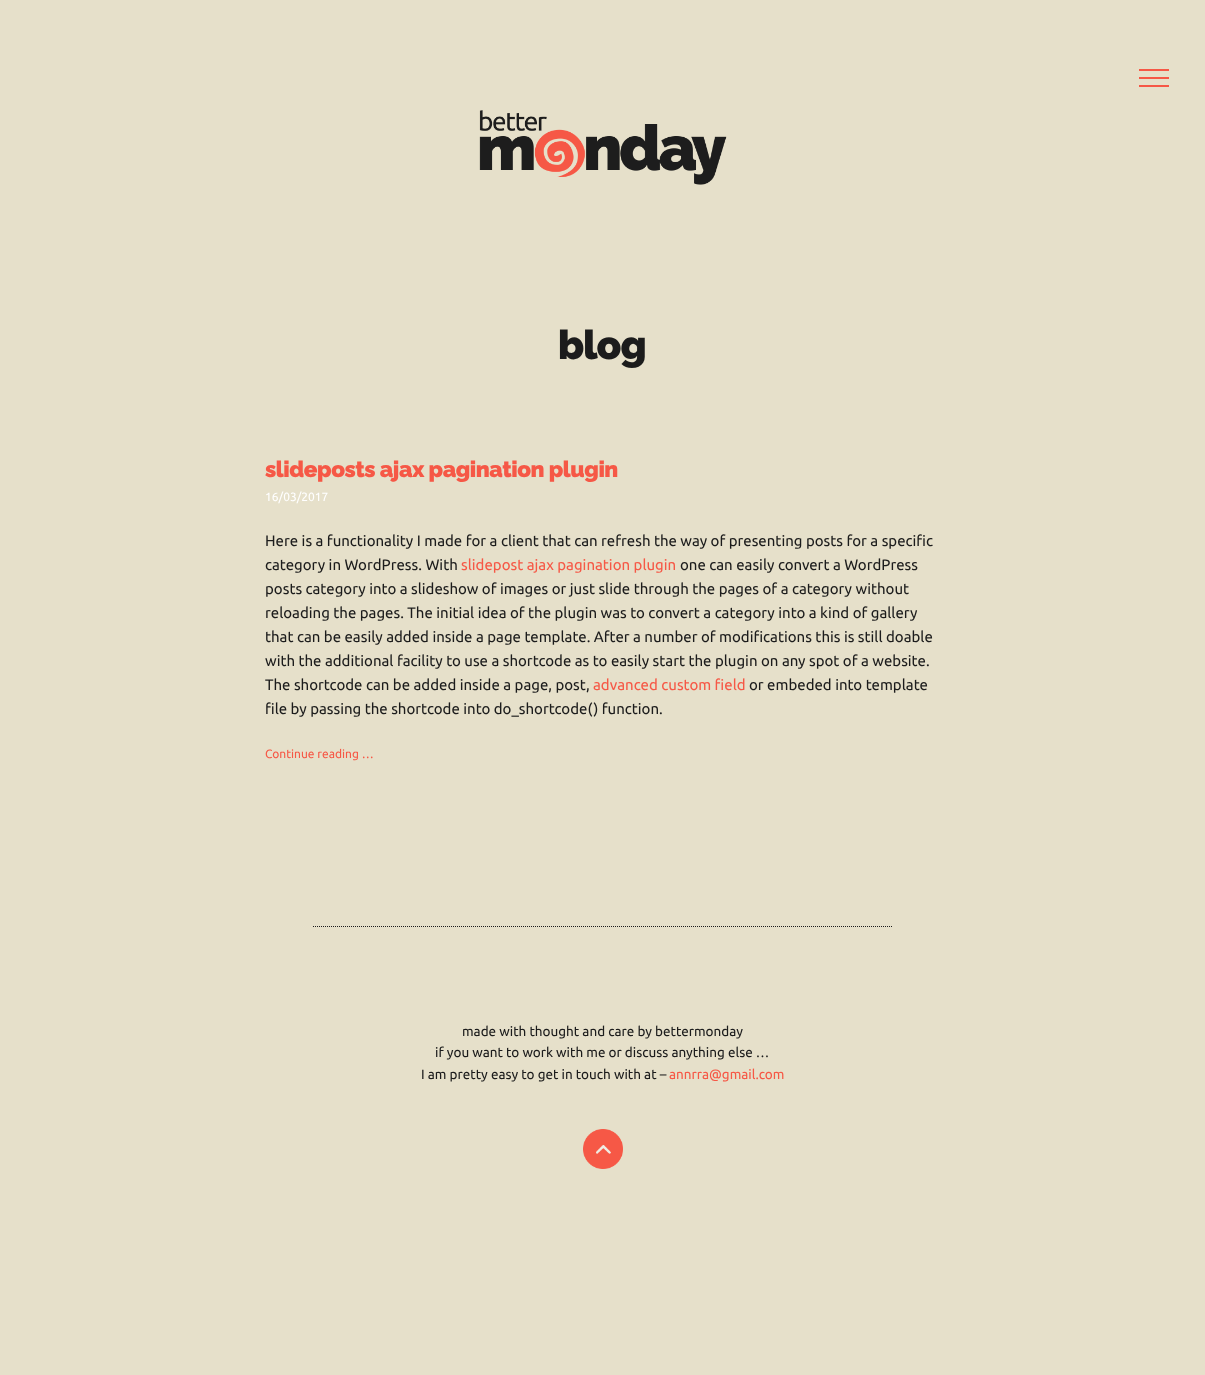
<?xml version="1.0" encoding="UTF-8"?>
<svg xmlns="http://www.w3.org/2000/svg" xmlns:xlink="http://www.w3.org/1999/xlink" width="1205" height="1375">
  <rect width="100%" height="100%" fill="#e6e0ca" />
  <rect x="1139" y="69" width="30" height="2" fill="#f65846" />
  <rect x="1139" y="77" width="30" height="2" fill="#f65846" />
  <rect x="1139" y="85" width="30" height="2" fill="#f65846" />
  <image x="479" y="110" width="248" height="75" xlink:href="image1.png" />
  <path d="M 313 926.5 h 579" fill="none" stroke="#1d1d1d" stroke-dasharray="1 1" />
  <image x="583" y="1129" width="40" height="40" xlink:href="image2.png" />
  <text x="558" y="359" style="font-family: Raleway; font-size: 40.5px; font-weight: 100; letter-spacing: -1px; fill: #1c1c1c">blog</text>
  <text x="265" y="477" style="font-family: Raleway; font-size: 22.5px; font-weight: 100; letter-spacing: -0.45px; fill: #f65846">slideposts ajax pagination plugin</text>
  <text x="265" y="501" style="font-family: Ubuntu; font-size: 12px; fill: #ffffff">16/03/2017</text>
  <text x="265" y="546" style="font-family: Ubuntu; font-size: 15px; fill: #1c1c1c">Here is a functionality I made for a client that can refresh the way of presenting posts for a specific</text>
  <text x="265" y="570" style="font-family: Ubuntu; font-size: 15px; fill: #1c1c1c">category in WordPress. With</text>
  <text x="461" y="570" style="font-family: Ubuntu; font-size: 15px; fill: #f65846">slidepost ajax pagination plugin</text>
  <text x="680" y="570" style="font-family: Ubuntu; font-size: 15px; fill: #1c1c1c">one can easily convert a WordPress</text>
  <text x="265" y="594" style="font-family: Ubuntu; font-size: 15px; fill: #1c1c1c">posts category into a slideshow of images or just slide through the pages of a category without</text>
  <text x="265" y="618" style="font-family: Ubuntu; font-size: 15px; fill: #1c1c1c">reloading the pages. The initial idea of the plugin was to convert a category into a kind of gallery</text>
  <text x="265" y="642" style="font-family: Ubuntu; font-size: 15px; fill: #1c1c1c">that can be easily added inside a page template. After a number of modifications this is still doable</text>
  <text x="265" y="666" style="font-family: Ubuntu; font-size: 15px; fill: #1c1c1c">with the additional facility to use a shortcode as to easily start the plugin on any spot of a website.</text>
  <text x="265" y="690" style="font-family: Ubuntu; font-size: 15px; fill: #1c1c1c">The shortcode can be added inside a page, post,</text>
  <text x="593" y="690" style="font-family: Ubuntu; font-size: 15px; fill: #f65846">advanced custom field</text>
  <text x="749" y="690" style="font-family: Ubuntu; font-size: 15px; fill: #1c1c1c">or embeded into template</text>
  <text x="265" y="714" style="font-family: Ubuntu; font-size: 15px; fill: #1c1c1c">file by passing the shortcode into do_shortcode() function.</text>
  <text x="265" y="758" style="font-family: Ubuntu; font-size: 12px; fill: #f65846">Continue reading …</text>
  <text x="462" y="1036" style="font-family: Ubuntu; font-size: 13.5px; fill: #1c1c1c">made with thought and care by bettermonday</text>
  <text x="435" y="1057" style="font-family: Ubuntu; font-size: 13.5px; fill: #1c1c1c">if you want to work with me or discuss anything else …</text>
  <text x="421" y="1079" style="font-family: Ubuntu; font-size: 13.5px; fill: #1c1c1c">I am pretty easy to get in touch with at –</text>
  <text x="669" y="1079" style="font-family: Ubuntu; font-size: 13.5px; fill: #f65846">annrra@gmail.com</text>
</svg>
